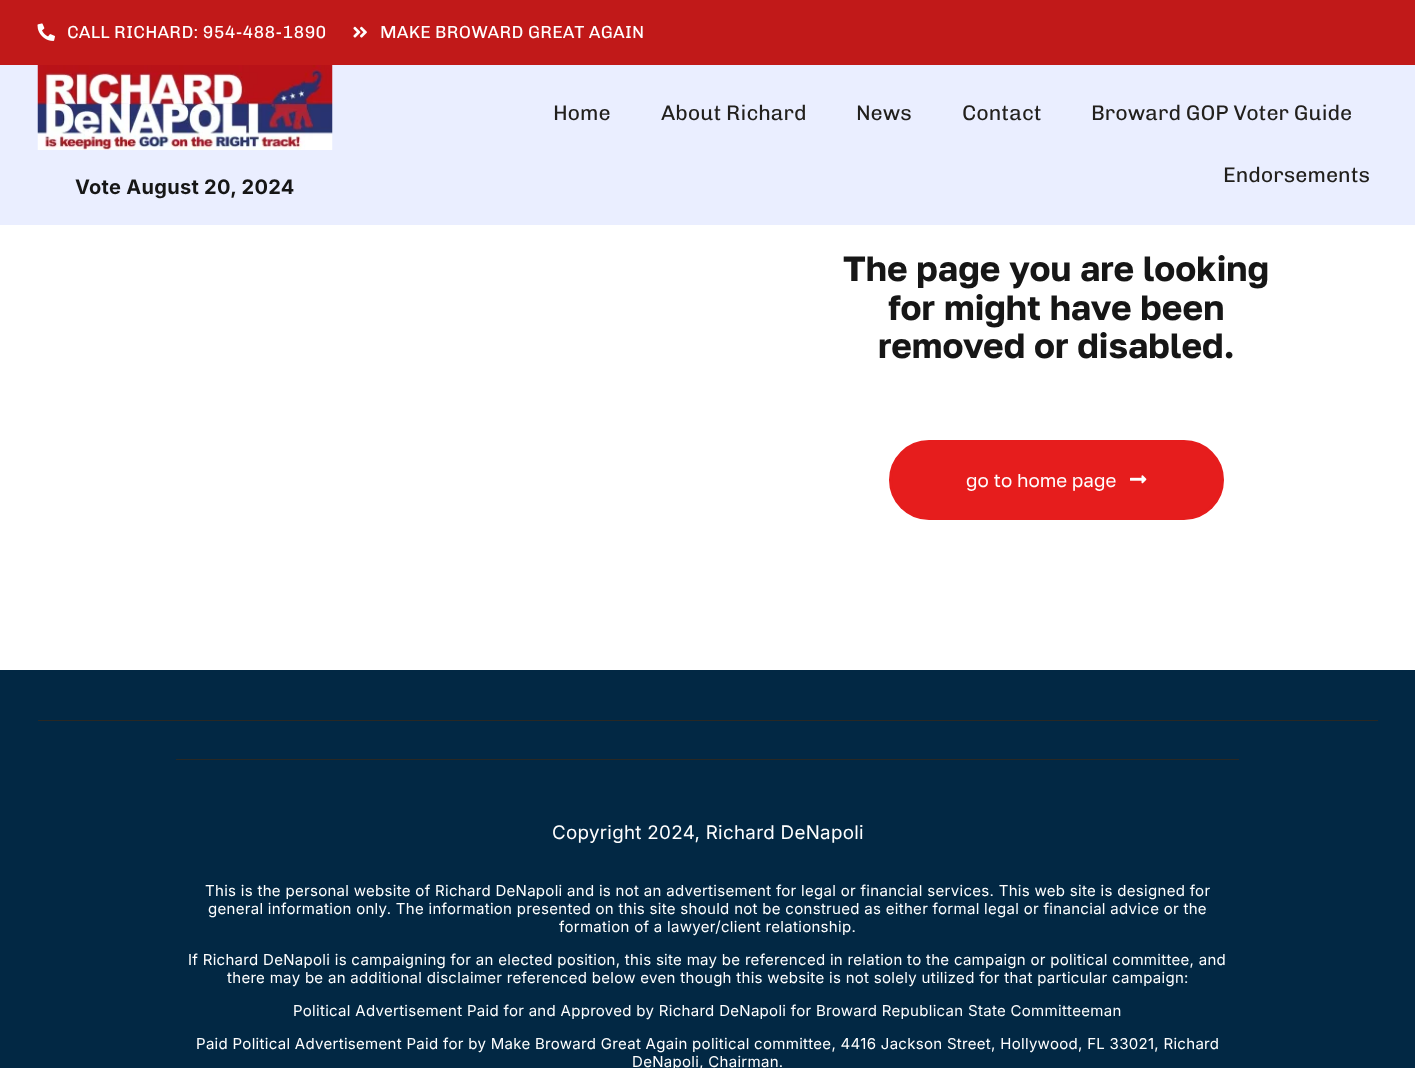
<?xml version="1.0" encoding="UTF-8"?>
<svg xmlns="http://www.w3.org/2000/svg" xmlns:xlink="http://www.w3.org/1999/xlink" width="1415" height="1068">
  <rect width="100%" height="100%" fill="#ffffff" />
  <rect width="1415" height="65" fill="#c11919" />
  <image x="37" y="23" width="18" height="18" xlink:href="image1.png" />
  <image x="353" y="26" width="14" height="12" xlink:href="image2.png" />
  <rect y="65" width="1415" height="160" fill="#eaeeff" />
  <image x="37" y="65" width="296" height="85" xlink:href="image3.png" />
  <rect x="890.5" y="441.5" width="332" height="77" rx="38.5" fill="#e61d1d" stroke="#e61d1d" stroke-width="3" />
  <image x="1130" y="475" width="17" height="9" xlink:href="image4.png" />
  <rect y="670" width="1415" height="398" fill="#022844" />
  <rect x="38" y="720" width="1340" height="1" fill="#292823" />
  <rect x="176" y="759" width="1063" height="1" fill="#292823" />
  <text x="67" y="38" style="font-family: Chivo; font-size: 17.5px; font-weight: 500; letter-spacing: 0.25px; fill: #ffffff">CALL RICHARD: 954-488-1890</text>
  <text x="380" y="38" style="font-family: Chivo; font-size: 17.5px; font-weight: 500; letter-spacing: 0.25px; fill: #ffffff">MAKE BROWARD GREAT AGAIN</text>
  <text x="553" y="120" style="font-family: Chivo; font-size: 21.25px; font-weight: 500; fill: #22201d">Home</text>
  <text x="661" y="120" style="font-family: Chivo; font-size: 21.25px; font-weight: 500; fill: #22201d">About Richard</text>
  <text x="856" y="120" style="font-family: Chivo; font-size: 21.25px; font-weight: 500; fill: #22201d">News</text>
  <text x="962" y="120" style="font-family: Chivo; font-size: 21.25px; font-weight: 500; fill: #22201d">Contact</text>
  <text x="1091" y="120" style="font-family: Chivo; font-size: 21.25px; font-weight: 500; fill: #22201d">Broward GOP Voter Guide</text>
  <text x="1223" y="182" style="font-family: Chivo; font-size: 21.25px; font-weight: 500; fill: #22201d">Endorsements</text>
  <text x="75" y="194" style="font-family: Inter; font-size: 20px; font-weight: bold; letter-spacing: 0.3px; fill: #161616">Vote August 20, 2024</text>
  <text x="843" y="281" style="font-family: Golos Text; font-size: 35px; font-weight: bold; fill: #161616">The page you are looking</text>
  <text x="888" y="320" style="font-family: Golos Text; font-size: 35px; font-weight: bold; fill: #161616">for might have been</text>
  <text x="878" y="358" style="font-family: Golos Text; font-size: 35px; font-weight: bold; fill: #161616">removed or disabled.</text>
  <text x="966" y="487" style="font-family: Golos Text; font-size: 18.75px; fill: #ffffff">go to home page</text>
  <text x="552" y="839" style="font-family: Inter; font-size: 18.75px; letter-spacing: 0.3px; fill: #ffffff">Copyright 2024, Richard DeNapoli</text>
  <text x="205" y="896" style="font-family: Inter; font-size: 15px; letter-spacing: 0.3px; fill: #ffffff">This is the personal website of Richard DeNapoli and is not an advertisement for legal or financial services. This web site is designed for</text>
  <text x="208" y="914" style="font-family: Inter; font-size: 15px; letter-spacing: 0.3px; fill: #ffffff">general information only. The information presented on this site should not be construed as either formal legal or financial advice or the</text>
  <text x="559" y="932" style="font-family: Inter; font-size: 15px; letter-spacing: 0.3px; fill: #ffffff">formation of a lawyer/client relationship.</text>
  <text x="188" y="965" style="font-family: Inter; font-size: 15px; letter-spacing: 0.3px; fill: #ffffff">If Richard DeNapoli is campaigning for an elected position, this site may be referenced in relation to the campaign or political committee, and</text>
  <text x="227" y="983" style="font-family: Inter; font-size: 15px; letter-spacing: 0.3px; fill: #ffffff">there may be an additional disclaimer referenced below even though this website is not solely utilized for that particular campaign:</text>
  <text x="293" y="1016" style="font-family: Inter; font-size: 15px; letter-spacing: 0.3px; fill: #ffffff">Political Advertisement Paid for and Approved by Richard DeNapoli for Broward Republican State Committeeman</text>
  <text x="196" y="1049" style="font-family: Inter; font-size: 15px; letter-spacing: 0.3px; fill: #ffffff">Paid Political Advertisement Paid for by Make Broward Great Again political committee, 4416 Jackson Street, Hollywood, FL 33021, Richard</text>
  <text x="632" y="1067" style="font-family: Inter; font-size: 15px; letter-spacing: 0.3px; fill: #ffffff">DeNapoli, Chairman.</text>
</svg>
